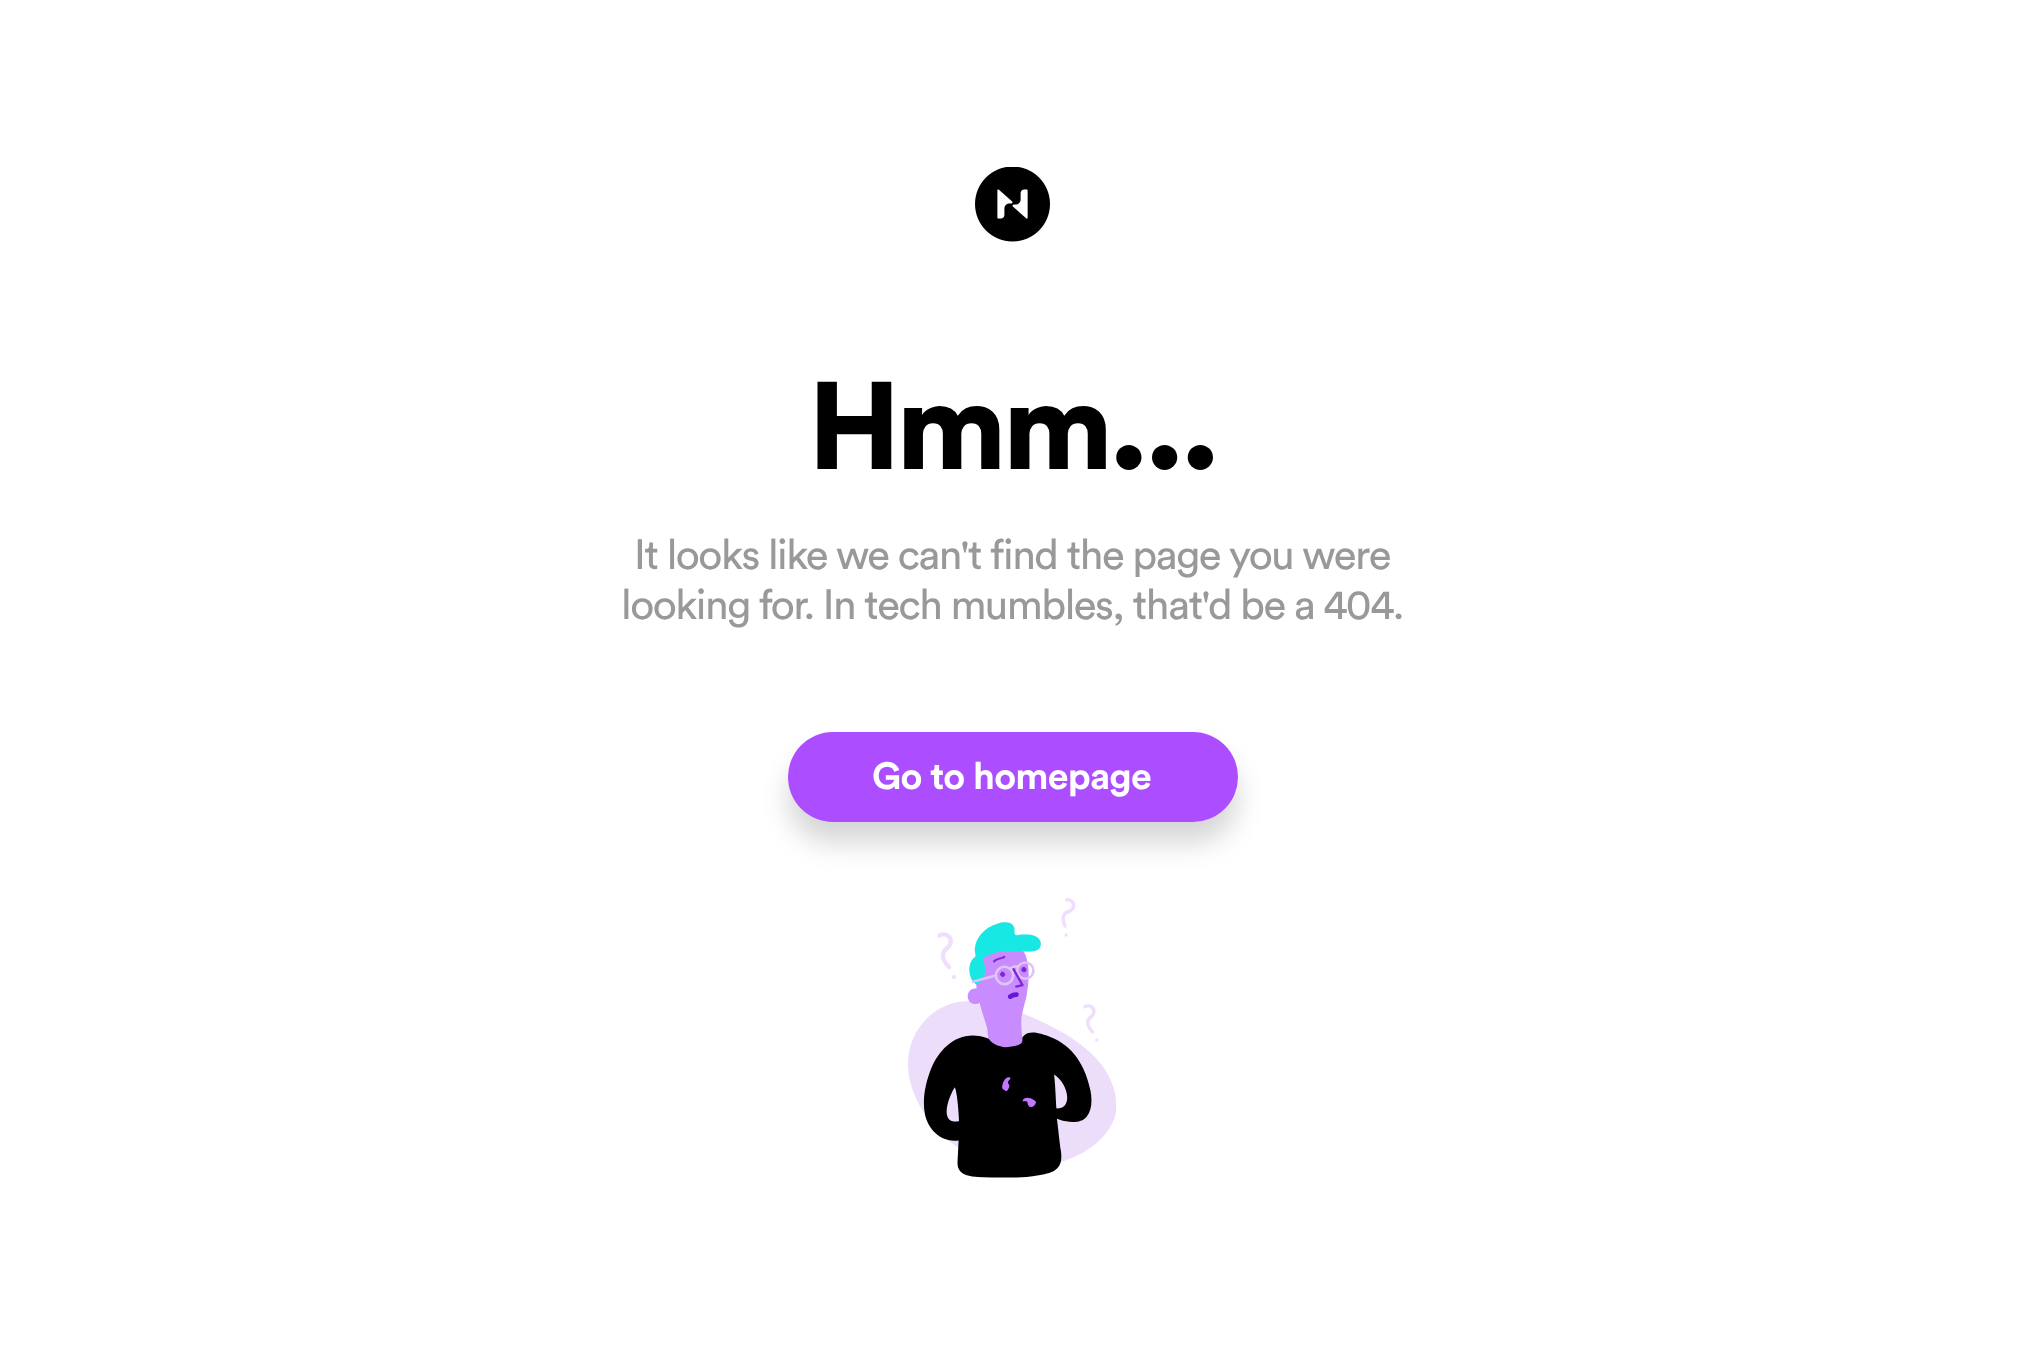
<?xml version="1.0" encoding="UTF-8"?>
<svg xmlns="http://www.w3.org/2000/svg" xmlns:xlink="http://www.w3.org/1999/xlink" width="2023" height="1349">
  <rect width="100%" height="100%" fill="#ffffff" />
  <image x="975" y="167" width="75" height="75" xlink:href="image1.png" />
  <rect x="788" y="753" width="450" height="90" rx="45" fill="#000000" fill-opacity="0.16" filter="blur(13.5px)" />
  <rect x="788" y="732" width="450" height="90" rx="45" fill="#ac4dff" />
  <image x="908" y="898" width="208" height="280" xlink:href="image2.png" />
  <text x="808" y="469" style="font-family: Circular; font-size: 123px; font-weight: 900; letter-spacing: -4.5px; fill: #000000">Hmm...</text>
  <text x="634" y="569" style="font-family: Circular; font-size: 42px; letter-spacing: -1.5px; fill: #999999">It looks like we can't find the page you were</text>
  <text x="621" y="619" style="font-family: Circular; font-size: 42px; letter-spacing: -1.5px; fill: #999999">looking for. In tech mumbles, that'd be a 404.</text>
  <text x="872" y="789" style="font-family: Circular; font-size: 37.5px; font-weight: bold; letter-spacing: -0.75px; fill: #ffffff">Go to homepage</text>
</svg>
